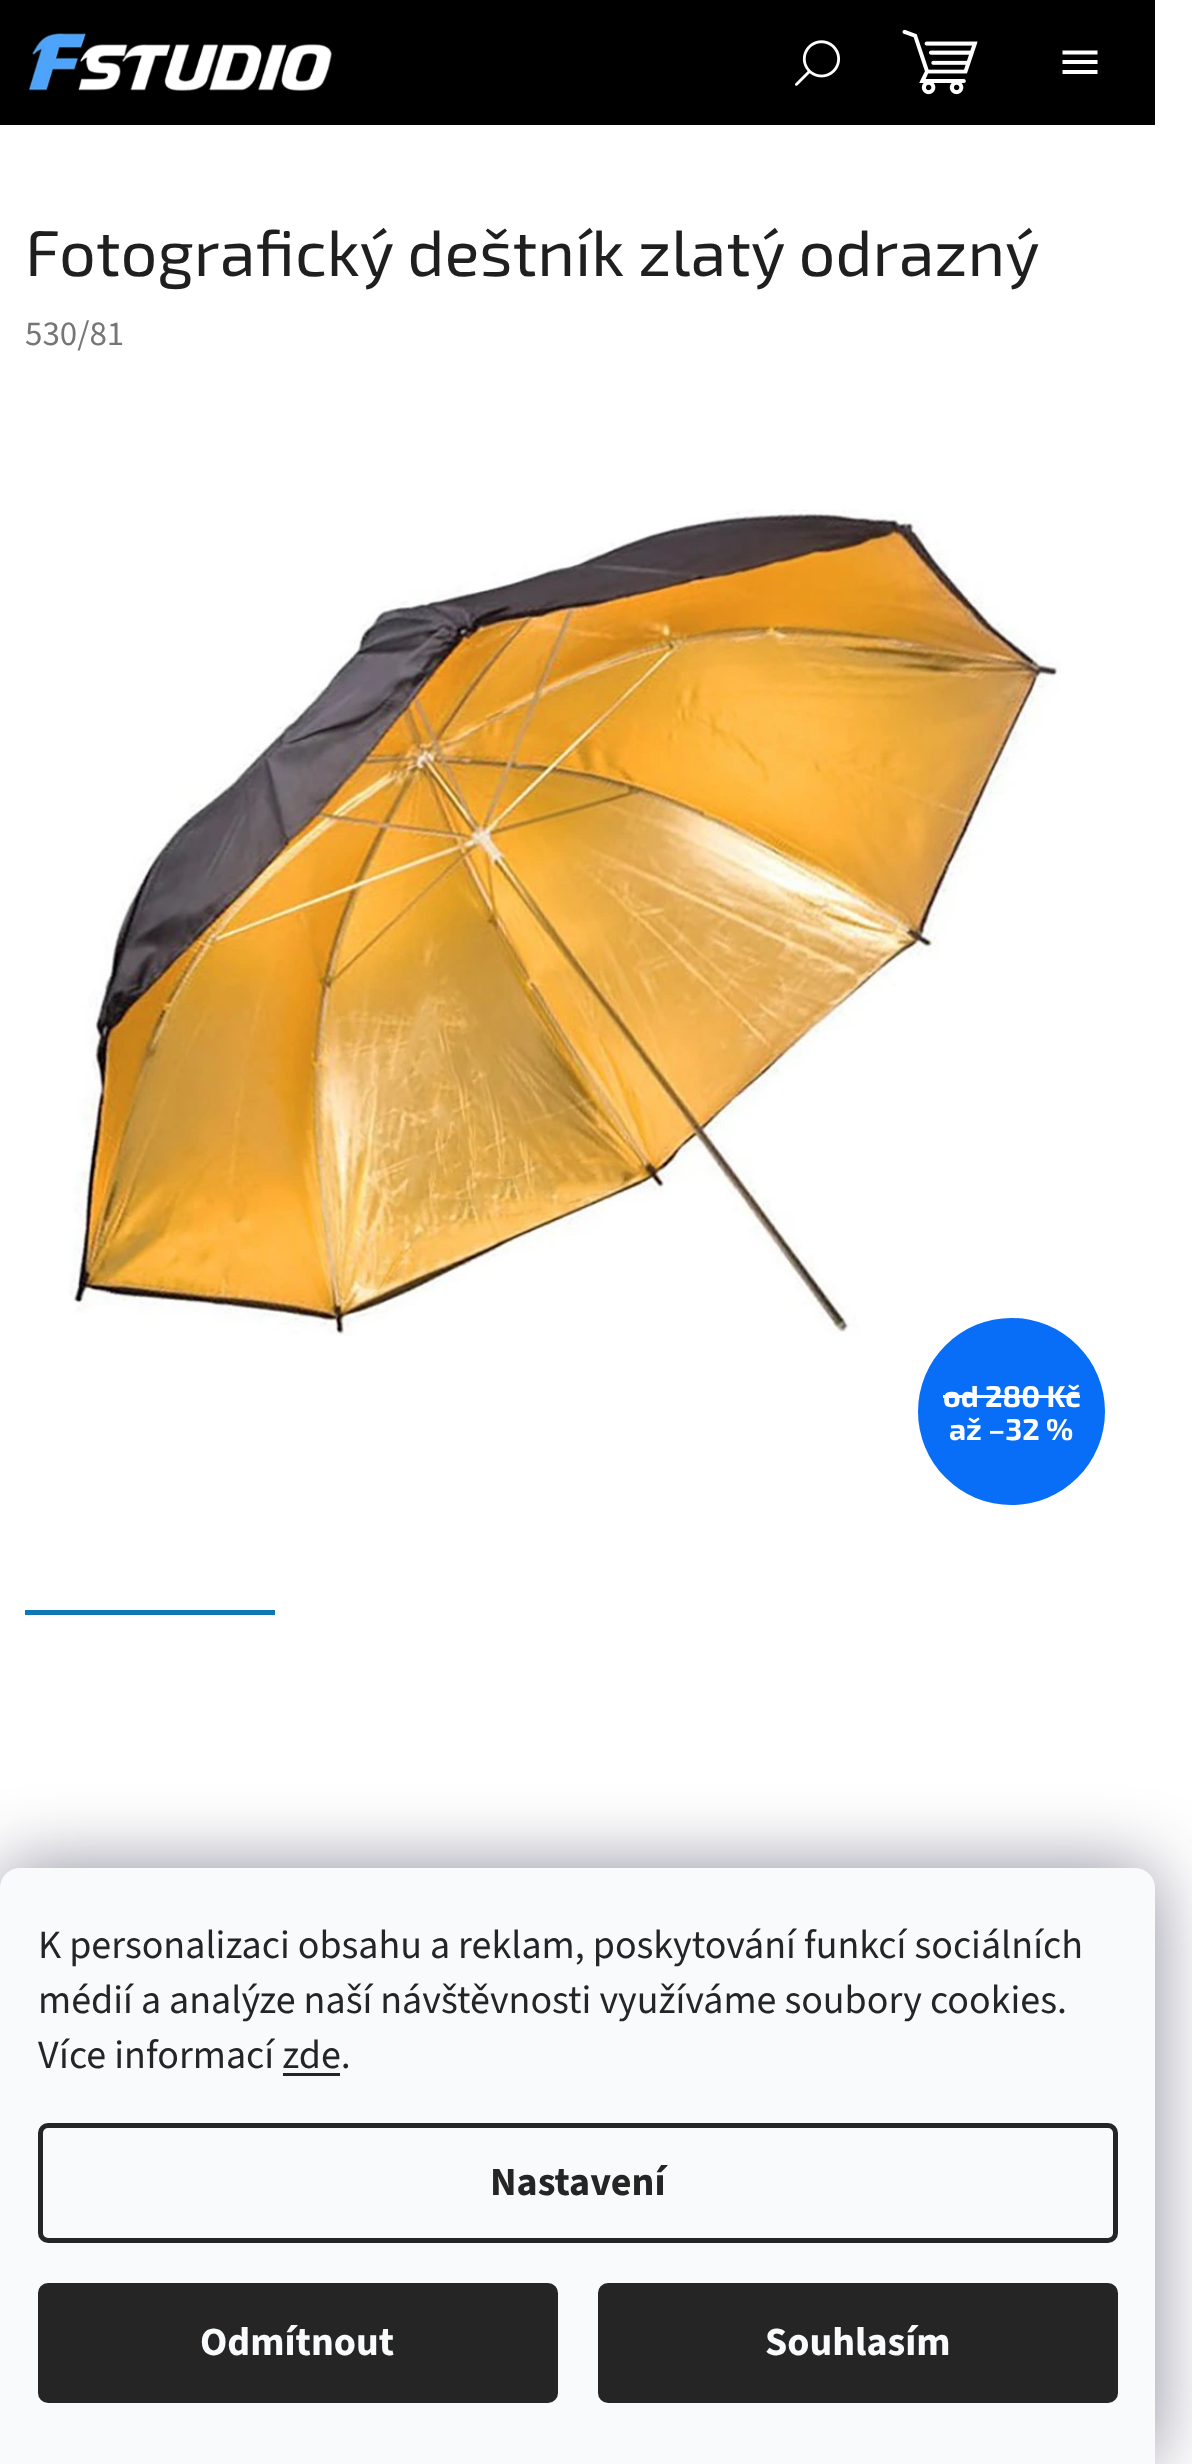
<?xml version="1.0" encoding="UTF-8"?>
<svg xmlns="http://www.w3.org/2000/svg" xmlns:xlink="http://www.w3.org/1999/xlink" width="1192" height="2464">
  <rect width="100%" height="100%" fill="#ffffff" />
  <rect width="1155" height="125" fill="#000000" />
  <image x="795" y="40" width="45" height="46" xlink:href="image1.png" />
  <path d="M 1062.5 74 h 35 v -4 h -35 z m 0 -10 h 35 v -4 h -35 z m 0 -13.5 v 4 h 35 v -4 z" fill="#ffffff" />
  <image x="28" y="32" width="304" height="59" xlink:href="image2.png" />
  <image x="902" y="29" width="76" height="66" xlink:href="image3.png" />
  <image x="69" y="509" width="992" height="827" xlink:href="image4.png" />
  <circle cx="1011.5" cy="1411.5" r="93.5" fill="#086df7" />
  <rect x="943" y="1395" width="137" height="3" fill="#ffffff" />
  <rect x="25" y="1610" width="250" height="5" fill="#1076b7" />
  <rect y="1868" width="1155" height="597" rx="20" fill="#1b1939" fill-opacity="0.5" filter="blur(37.5px)" />
  <path d="M 20 1868 h 1115 c 11 0 20 9 20 20 v 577 h -1155 v -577 c 0 -11 9 -20 20 -20 z" fill="#f8fafb" />
  <rect x="283" y="2073" width="57" height="3" fill="#252525" />
  <rect x="40.5" y="2125.5" width="1075" height="115" rx="7.5" fill="none" stroke="#252525" stroke-width="5" />
  <rect x="38" y="2283" width="520" height="120" rx="10" fill="#252525" />
  <rect x="598" y="2283" width="520" height="120" rx="10" fill="#252525" />
  <text x="25" y="276" style="font-family: 'Exo 2'; font-size: 65px; fill: #1f1f1f">Fotografický deštník zlatý odrazný</text>
  <text x="25" y="345" style="font-family: 'Source Sans 3'; font-size: 35px; fill: #767676">530/81</text>
  <text x="943" y="1407" style="font-family: 'Exo 2'; font-size: 30px; font-weight: bold; fill: #ffffff">od 280 Kč</text>
  <text x="949" y="1440" style="font-family: 'Exo 2'; font-size: 30px; font-weight: bold; fill: #ffffff">až –32 %</text>
  <text x="38" y="1958" style="font-family: 'Source Sans 3'; font-size: 40px; fill: #252525">K personalizaci obsahu a reklam, poskytování funkcí sociálních</text>
  <text x="38" y="2013" style="font-family: 'Source Sans 3'; font-size: 40px; fill: #252525">médií a analýze naší návštěvnosti využíváme soubory cookies.</text>
  <text x="38" y="2068" style="font-family: 'Source Sans 3'; font-size: 40px; fill: #252525">Více informací zde.</text>
  <text x="490" y="2195" style="font-family: 'Source Sans 3'; font-size: 40px; font-weight: bold; fill: #252525">Nastavení</text>
  <text x="200" y="2355" style="font-family: 'Source Sans 3'; font-size: 40px; font-weight: bold; fill: #f8fafb">Odmítnout</text>
  <text x="765" y="2355" style="font-family: 'Source Sans 3'; font-size: 40px; font-weight: bold; fill: #f8fafb">Souhlasím</text>
</svg>
